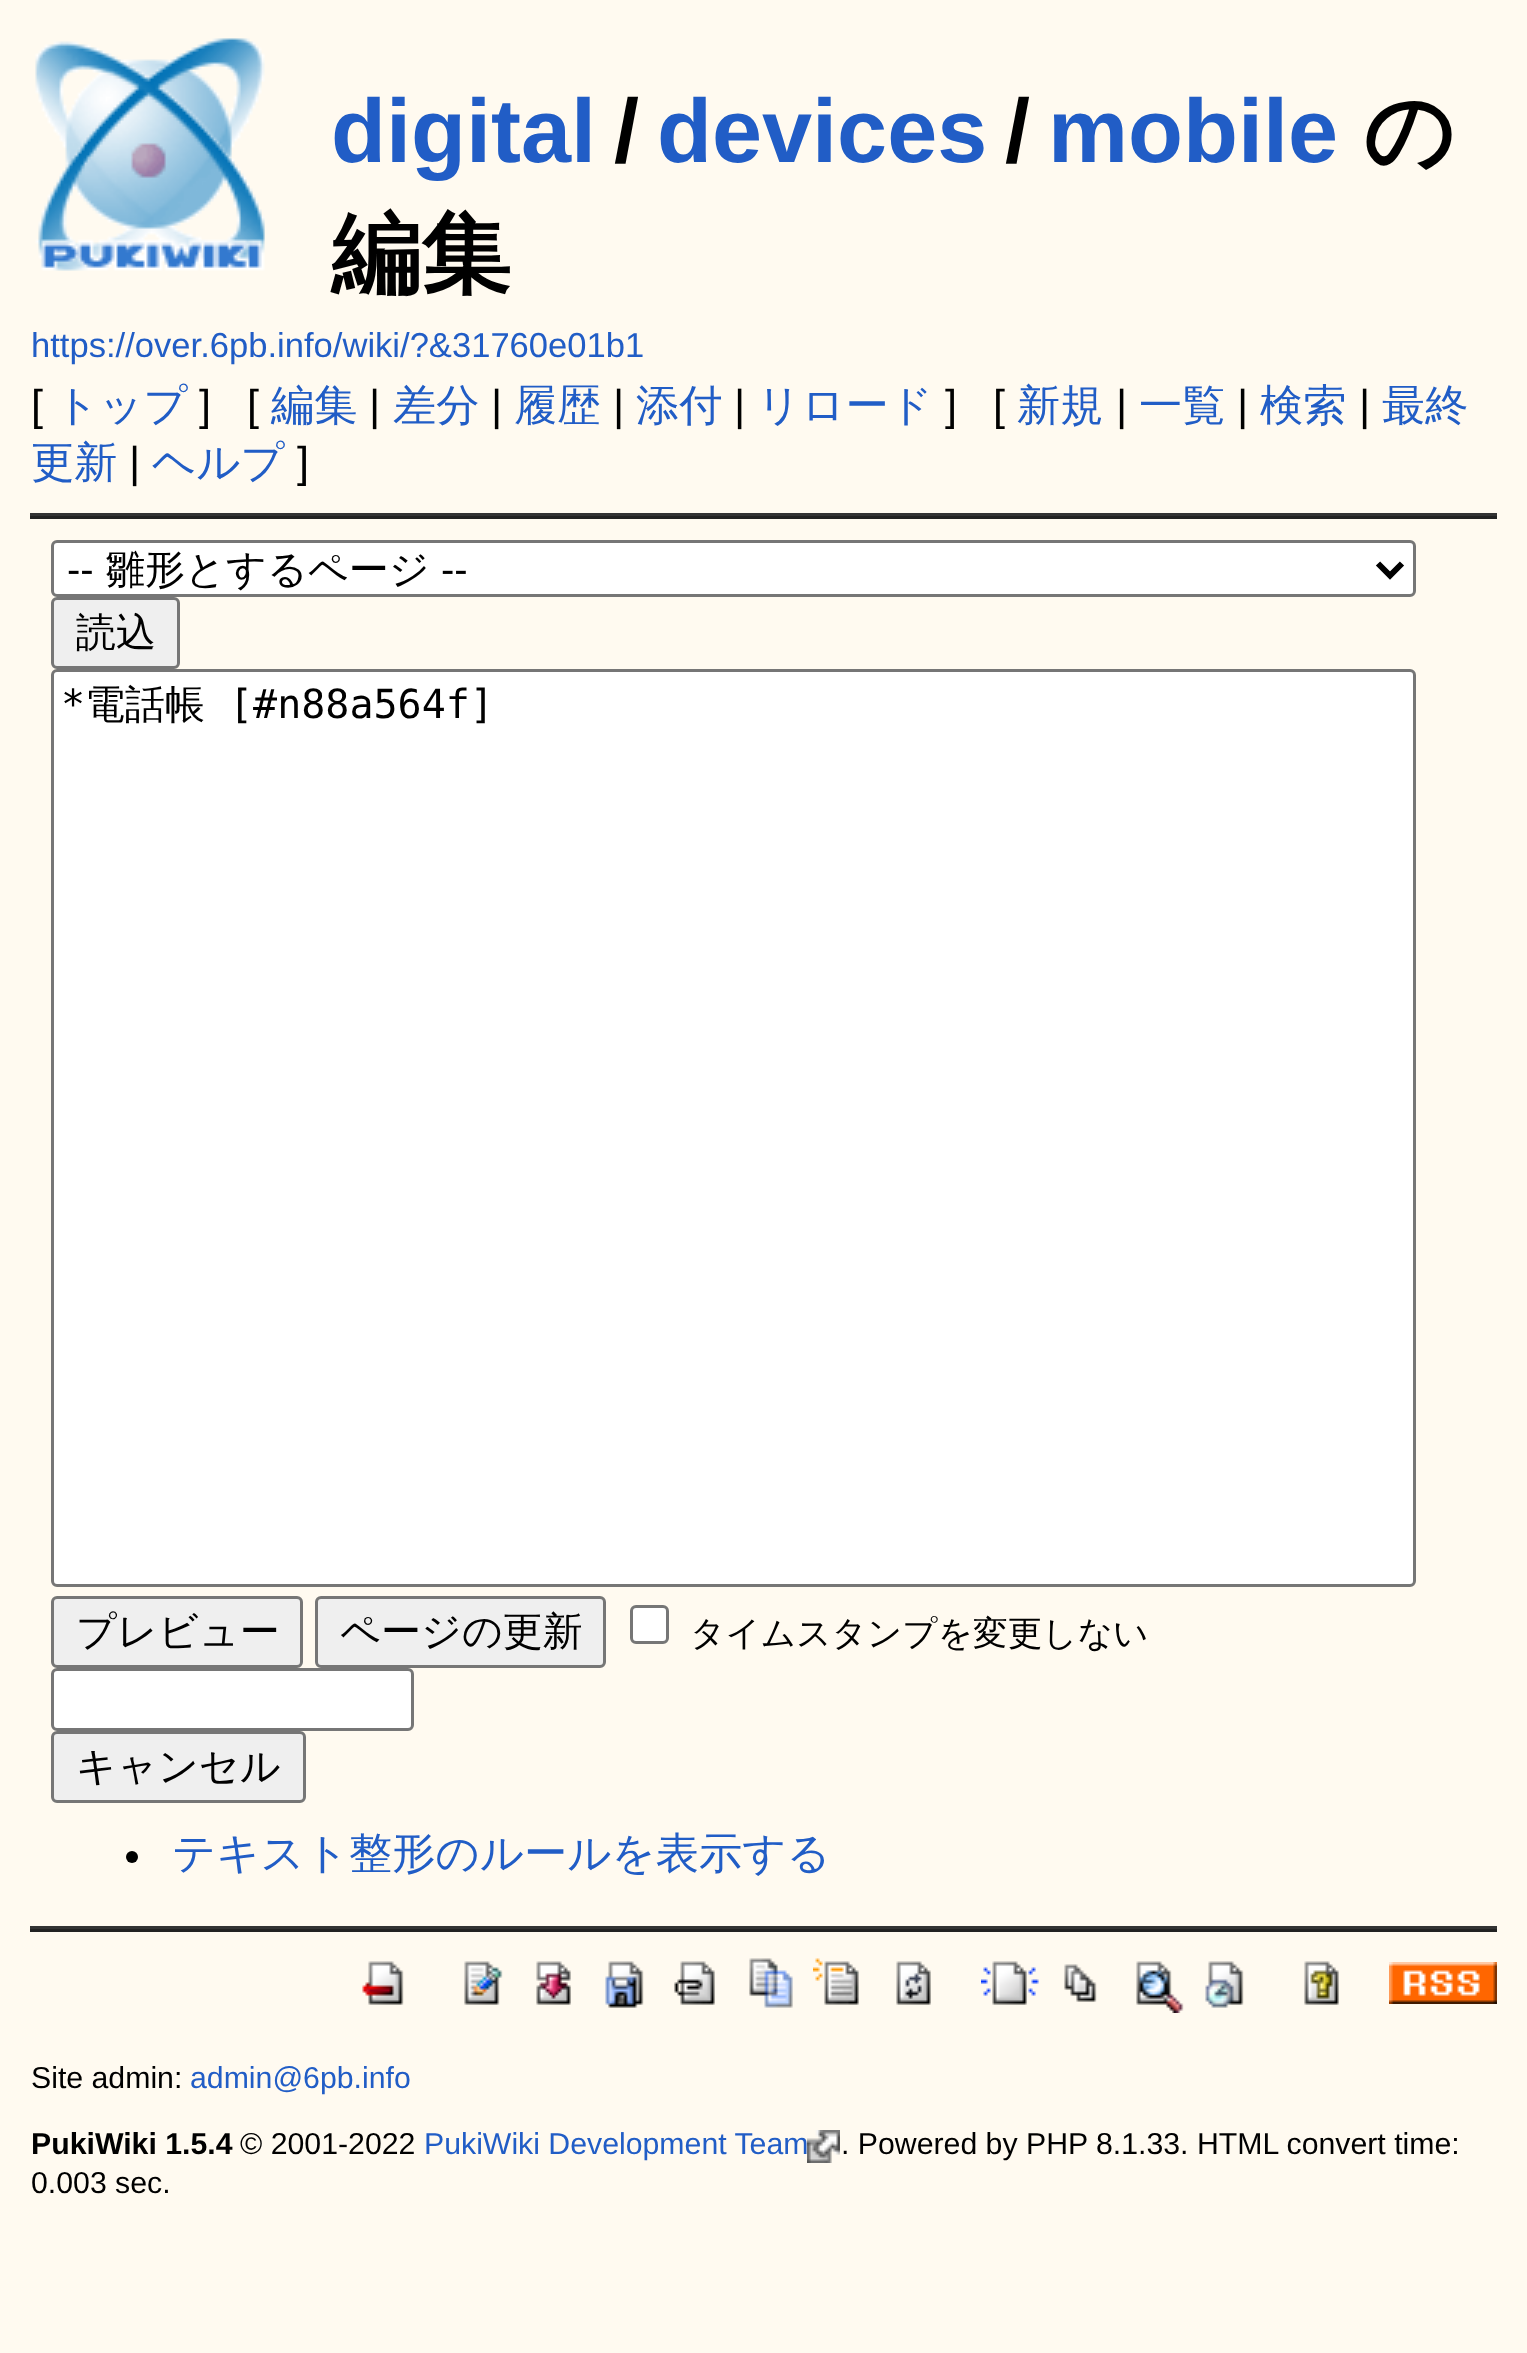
<?xml version="1.0" encoding="UTF-8"?>
<svg xmlns="http://www.w3.org/2000/svg" xmlns:xlink="http://www.w3.org/1999/xlink" width="1527" height="2353">
  <rect width="100%" height="100%" fill="#fffaf0" />
  <image x="35" y="38" width="230" height="233" xlink:href="image1.png" />
  <rect x="30" y="513" width="1467" height="3" fill="#333333" />
  <rect x="30" y="516" width="1467" height="3" fill="#222222" />
  <rect x="52.5" y="541.5" width="1362" height="54" rx="4.5" fill="#ffffff" stroke="#767676" stroke-width="3" />
  <path d="M 1378 563.5 l 12 12 l 12 -12" fill="none" stroke="#000000" stroke-width="6" />
  <rect x="52.5" y="598.5" width="126" height="69" rx="4.5" fill="#efefef" stroke="#767676" stroke-width="3" />
  <rect x="52.5" y="670.5" width="1362" height="915" rx="4.5" fill="#ffffff" stroke="#767676" stroke-width="3" />
  <rect x="52.5" y="1597.5" width="249" height="69" rx="4.5" fill="#efefef" stroke="#767676" stroke-width="3" />
  <rect x="316.5" y="1597.5" width="288" height="69" rx="4.5" fill="#efefef" stroke="#767676" stroke-width="3" />
  <rect x="631.5" y="1606.5" width="36" height="36" rx="4.5" fill="#ffffff" stroke="#767676" stroke-width="3" />
  <rect x="52.5" y="1669.5" width="360" height="60" rx="4.5" fill="#ffffff" stroke="#767676" stroke-width="3" />
  <rect x="52.5" y="1732.5" width="252" height="69" rx="4.5" fill="#efefef" stroke="#767676" stroke-width="3" />
  <circle cx="132" cy="1857" r="6" fill="#000000" />
  <rect x="30" y="1926" width="1467" height="3" fill="#333333" />
  <rect x="30" y="1929" width="1467" height="3" fill="#222222" />
  <image x="362" y="1961" width="42" height="44" xlink:href="image2.png" />
  <image x="464" y="1961" width="39" height="44" xlink:href="image3.png" />
  <image x="536" y="1961" width="35" height="44" xlink:href="image4.png" />
  <image x="605" y="1961" width="39" height="47" xlink:href="image5.png" />
  <image x="674" y="1961" width="41" height="44" xlink:href="image6.png" />
  <image x="749" y="1958" width="44" height="50" xlink:href="image7.png" />
  <image x="813" y="1958" width="46" height="47" xlink:href="image8.png" />
  <image x="896" y="1961" width="35" height="44" xlink:href="image9.png" />
  <image x="981" y="1961" width="58" height="44" xlink:href="image10.png" />
  <image x="1064" y="1964" width="33" height="38" xlink:href="image11.png" />
  <image x="1136" y="1961" width="48" height="52" xlink:href="image12.png" />
  <image x="1205" y="1961" width="39" height="47" xlink:href="image13.png" />
  <image x="1304" y="1961" width="35" height="44" xlink:href="image14.png" />
  <image x="1389" y="1962" width="108" height="42" xlink:href="image15.png" />
  <image x="807" y="2130" width="33" height="33" xlink:href="image16.png" />
  <text x="331" y="162" style="font-family: Liberation Sans; font-size: 90px; font-weight: bold; fill: #215dc6">digital</text>
  <text x="614" y="162" style="font-family: Liberation Sans; font-size: 90px; font-weight: bold; fill: #000000">/</text>
  <text x="657" y="162" style="font-family: Liberation Sans; font-size: 90px; font-weight: bold; fill: #215dc6">devices</text>
  <text x="1005" y="162" style="font-family: Liberation Sans; font-size: 90px; font-weight: bold; fill: #000000">/</text>
  <text x="1048" y="162" style="font-family: Liberation Sans; font-size: 90px; font-weight: bold; fill: #215dc6">mobile</text>
  <text x="1363" y="162" style="font-family: WenQuanYi Zen Hei; font-size: 90px; font-weight: bold; fill: #000000">の</text>
  <text x="331" y="285" style="font-family: WenQuanYi Zen Hei; font-size: 90px; font-weight: bold; fill: #000000">編集</text>
  <text x="31" y="357" style="font-family: Liberation Sans; font-size: 34.6px; fill: #215dc6">https://over.6pb.info/wiki/?&amp;31760e01b1</text>
  <text x="31" y="420" style="font-family: Liberation Sans; font-size: 43.25px; fill: #000000">[</text>
  <text x="55" y="420" style="font-family: WenQuanYi Zen Hei; font-size: 43.25px; font-weight: 500; fill: #215dc6">トップ</text>
  <text x="199" y="420" style="font-family: Liberation Sans; font-size: 43.25px; fill: #000000">]</text>
  <text x="247" y="420" style="font-family: Liberation Sans; font-size: 43.25px; fill: #000000">[</text>
  <text x="271" y="420" style="font-family: WenQuanYi Zen Hei; font-size: 43.25px; font-weight: 500; fill: #215dc6">編集</text>
  <text x="369" y="420" style="font-family: Liberation Sans; font-size: 43.25px; fill: #000000">|</text>
  <text x="393" y="420" style="font-family: WenQuanYi Zen Hei; font-size: 43.25px; font-weight: 500; fill: #215dc6">差分</text>
  <text x="491" y="420" style="font-family: Liberation Sans; font-size: 43.25px; fill: #000000">|</text>
  <text x="514" y="420" style="font-family: WenQuanYi Zen Hei; font-size: 43.25px; font-weight: 500; fill: #215dc6">履歴</text>
  <text x="613" y="420" style="font-family: Liberation Sans; font-size: 43.25px; fill: #000000">|</text>
  <text x="636" y="420" style="font-family: WenQuanYi Zen Hei; font-size: 43.25px; font-weight: 500; fill: #215dc6">添付</text>
  <text x="734" y="420" style="font-family: Liberation Sans; font-size: 43.25px; fill: #000000">|</text>
  <text x="757" y="420" style="font-family: WenQuanYi Zen Hei; font-size: 43.25px; font-weight: 500; fill: #215dc6">リロード</text>
  <text x="945" y="420" style="font-family: Liberation Sans; font-size: 43.25px; fill: #000000">]</text>
  <text x="993" y="420" style="font-family: Liberation Sans; font-size: 43.25px; fill: #000000">[</text>
  <text x="1017" y="420" style="font-family: WenQuanYi Zen Hei; font-size: 43.25px; font-weight: 500; fill: #215dc6">新規</text>
  <text x="1116" y="420" style="font-family: Liberation Sans; font-size: 43.25px; fill: #000000">|</text>
  <text x="1139" y="420" style="font-family: WenQuanYi Zen Hei; font-size: 43.25px; font-weight: 500; fill: #215dc6">一覧</text>
  <text x="1237" y="420" style="font-family: Liberation Sans; font-size: 43.25px; fill: #000000">|</text>
  <text x="1260" y="420" style="font-family: WenQuanYi Zen Hei; font-size: 43.25px; font-weight: 500; fill: #215dc6">検索</text>
  <text x="1359" y="420" style="font-family: Liberation Sans; font-size: 43.25px; fill: #000000">|</text>
  <text x="1382" y="420" style="font-family: WenQuanYi Zen Hei; font-size: 43.25px; font-weight: 500; fill: #215dc6">最終</text>
  <text x="31" y="477" style="font-family: WenQuanYi Zen Hei; font-size: 43.25px; font-weight: 500; fill: #215dc6">更新</text>
  <text x="129" y="477" style="font-family: Liberation Sans; font-size: 43.25px; fill: #000000">|</text>
  <text x="152" y="477" style="font-family: WenQuanYi Zen Hei; font-size: 43.25px; font-weight: 500; fill: #215dc6">ヘルプ</text>
  <text x="297" y="477" style="font-family: Liberation Sans; font-size: 43.25px; fill: #000000">]</text>
  <text x="67" y="583" style="font-family: Liberation Sans; font-size: 40px; fill: #000000">--</text>
  <text x="105" y="583" style="font-family: WenQuanYi Zen Hei; font-size: 40px; font-weight: 500; fill: #000000">雛形とするページ</text>
  <text x="441" y="583" style="font-family: Liberation Sans; font-size: 40px; fill: #000000">--</text>
  <text x="76" y="646" style="font-family: WenQuanYi Zen Hei; font-size: 40px; font-weight: 500; fill: #000000">読込</text>
  <text x="61" y="718" style="font-family: DejaVu Sans Mono; font-size: 40px; fill: #000000">*</text>
  <text x="85" y="718" style="font-family: WenQuanYi Zen Hei; font-size: 40px; font-weight: 500; fill: #000000">電話帳</text>
  <text x="229" y="718" style="font-family: DejaVu Sans Mono; font-size: 40px; fill: #000000">[#n88a564f]</text>
  <text x="76" y="1645" style="font-family: WenQuanYi Zen Hei; font-size: 40px; font-weight: 500; fill: #000000">プレビュー</text>
  <text x="340" y="1645" style="font-family: WenQuanYi Zen Hei; font-size: 40px; font-weight: 500; fill: #000000">ページの更新</text>
  <text x="690" y="1645" style="font-family: WenQuanYi Zen Hei; font-size: 34.6px; font-weight: 500; fill: #000000">タイムスタンプを変更しない</text>
  <text x="76" y="1780" style="font-family: WenQuanYi Zen Hei; font-size: 40px; font-weight: 500; fill: #000000">キャンセル</text>
  <text x="172" y="1868" style="font-family: WenQuanYi Zen Hei; font-size: 43.25px; font-weight: 500; fill: #215dc6">テキスト整形のルールを表示する</text>
  <text x="31" y="2088" style="font-family: Liberation Sans; font-size: 30.25px; fill: #000000">Site admin:</text>
  <text x="190" y="2088" style="font-family: Liberation Sans; font-size: 30.25px; fill: #215dc6">admin@6pb.info</text>
  <text x="31" y="2154" style="font-family: Liberation Sans; font-size: 30.25px; font-weight: bold; fill: #000000">PukiWiki 1.5.4</text>
  <text x="240" y="2154" style="font-family: Liberation Sans; font-size: 30.25px; fill: #000000">© 2001-2022</text>
  <text x="424" y="2154" style="font-family: Liberation Sans; font-size: 30.25px; fill: #215dc6">PukiWiki Development Team</text>
  <text x="841" y="2154" style="font-family: Liberation Sans; font-size: 30.25px; fill: #000000">. Powered by PHP 8.1.33. HTML convert time:</text>
  <text x="31" y="2193" style="font-family: Liberation Sans; font-size: 30.25px; fill: #000000">0.003 sec.</text>
</svg>
